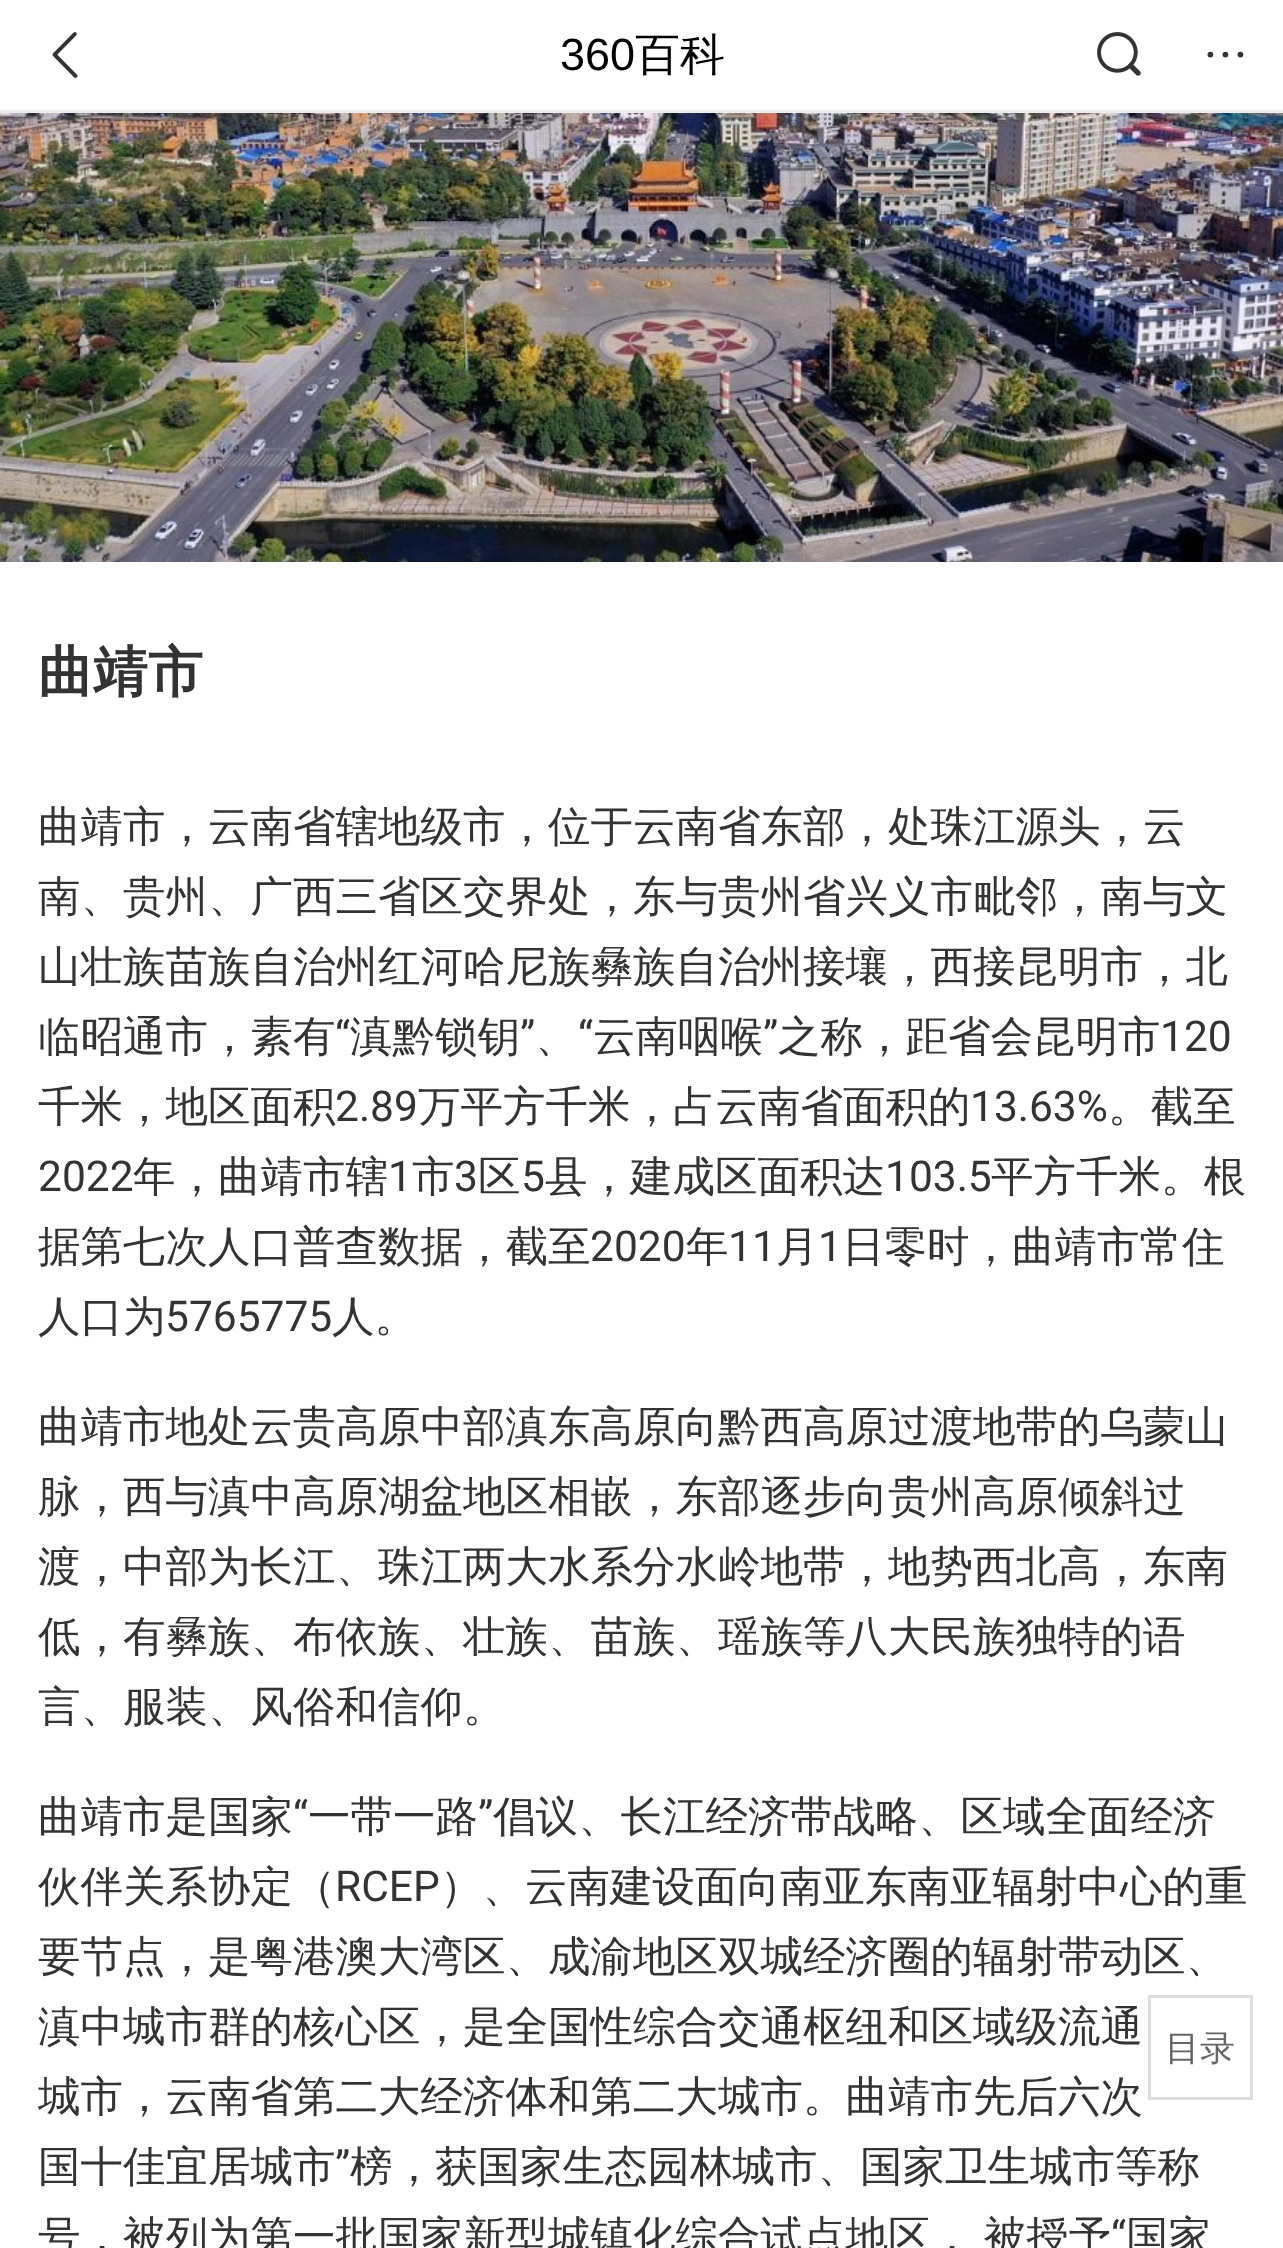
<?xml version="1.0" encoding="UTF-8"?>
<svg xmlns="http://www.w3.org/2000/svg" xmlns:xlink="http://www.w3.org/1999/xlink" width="1283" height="2248">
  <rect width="100%" height="100%" fill="#ffffff" />
  <rect y="110" width="1283" height="3" fill="#ededed" />
  <image x="52" y="32" width="26" height="46" xlink:href="image1.png" />
  <image x="1097" y="32" width="44" height="44" xlink:href="image2.png" />
  <circle cx="1210.4" cy="54.6" r="2.9" fill="#333333" />
  <circle cx="1225.4" cy="54.6" r="2.9" fill="#333333" />
  <circle cx="1240.4" cy="54.6" r="2.9" fill="#333333" />
  <rect x="1149.5" y="1996.5" width="102" height="102" fill="none" stroke="#dddddd" stroke-width="3" />
  <image x="0" y="113" width="1283" height="449" xlink:href="image3.png" />
  <text x="560" y="70" style="font-family: Liberation Sans; font-size: 45px; fill: #000000">360</text>
  <text x="635" y="70" style="font-family: WenQuanYi Zen Hei; font-size: 45px; font-weight: 500; fill: #000000">百科</text>
  <text x="1165" y="2060" style="font-family: WenQuanYi Zen Hei; font-size: 35px; font-weight: 500; fill: #666666">目录</text>
  <text x="38" y="691" style="font-family: WenQuanYi Zen Hei; font-size: 55px; font-weight: bold; fill: #333333">曲靖市</text>
  <text x="38" y="841" style="font-family: WenQuanYi Zen Hei; font-size: 42.5px; font-weight: 500; fill: #333333">曲靖市，云南省辖地级市，位于云南省东部，处珠江源头，云</text>
  <text x="38" y="911" style="font-family: WenQuanYi Zen Hei; font-size: 42.5px; font-weight: 500; fill: #333333">南、贵州、广西三省区交界处，东与贵州省兴义市毗邻，南与文</text>
  <text x="38" y="981" style="font-family: WenQuanYi Zen Hei; font-size: 42.5px; font-weight: 500; fill: #333333">山壮族苗族自治州红河哈尼族彝族自治州接壤，西接昆明市，北</text>
  <text x="38" y="1051" style="font-family: WenQuanYi Zen Hei; font-size: 42.5px; font-weight: 500; fill: #333333">临昭通市，素有</text>
  <text x="335" y="1051" style="font-family: Roboto; font-size: 42.5px; fill: #333333">“</text>
  <text x="350" y="1051" style="font-family: WenQuanYi Zen Hei; font-size: 42.5px; font-weight: 500; fill: #333333">滇黔锁钥</text>
  <text x="520" y="1051" style="font-family: Roboto; font-size: 42.5px; fill: #333333">”</text>
  <text x="535" y="1051" style="font-family: WenQuanYi Zen Hei; font-size: 42.5px; font-weight: 500; fill: #333333">、</text>
  <text x="578" y="1051" style="font-family: Roboto; font-size: 42.5px; fill: #333333">“</text>
  <text x="593" y="1051" style="font-family: WenQuanYi Zen Hei; font-size: 42.5px; font-weight: 500; fill: #333333">云南咽喉</text>
  <text x="763" y="1051" style="font-family: Roboto; font-size: 42.5px; fill: #333333">”</text>
  <text x="778" y="1051" style="font-family: WenQuanYi Zen Hei; font-size: 42.5px; font-weight: 500; fill: #333333">之称，距省会昆明市</text>
  <text x="1160" y="1051" style="font-family: Roboto; font-size: 42.5px; fill: #333333">120</text>
  <text x="38" y="1121" style="font-family: WenQuanYi Zen Hei; font-size: 42.5px; font-weight: 500; fill: #333333">千米，地区面积</text>
  <text x="335" y="1121" style="font-family: Roboto; font-size: 42.5px; fill: #333333">2.89</text>
  <text x="418" y="1121" style="font-family: WenQuanYi Zen Hei; font-size: 42.5px; font-weight: 500; fill: #333333">万平方千米，占云南省面积的</text>
  <text x="970" y="1121" style="font-family: Roboto; font-size: 42.5px; fill: #333333">13.63%</text>
  <text x="1108" y="1121" style="font-family: WenQuanYi Zen Hei; font-size: 42.5px; font-weight: 500; fill: #333333">。截至</text>
  <text x="38" y="1191" style="font-family: Roboto; font-size: 42.5px; fill: #333333">2022</text>
  <text x="133" y="1191" style="font-family: WenQuanYi Zen Hei; font-size: 42.5px; font-weight: 500; fill: #333333">年，曲靖市辖</text>
  <text x="388" y="1191" style="font-family: Roboto; font-size: 42.5px; fill: #333333">1</text>
  <text x="412" y="1191" style="font-family: WenQuanYi Zen Hei; font-size: 42.5px; font-weight: 500; fill: #333333">市</text>
  <text x="454" y="1191" style="font-family: Roboto; font-size: 42.5px; fill: #333333">3</text>
  <text x="478" y="1191" style="font-family: WenQuanYi Zen Hei; font-size: 42.5px; font-weight: 500; fill: #333333">区</text>
  <text x="521" y="1191" style="font-family: Roboto; font-size: 42.5px; fill: #333333">5</text>
  <text x="545" y="1191" style="font-family: WenQuanYi Zen Hei; font-size: 42.5px; font-weight: 500; fill: #333333">县，建成区面积达</text>
  <text x="885" y="1191" style="font-family: Roboto; font-size: 42.5px; fill: #333333">103.5</text>
  <text x="991" y="1191" style="font-family: WenQuanYi Zen Hei; font-size: 42.5px; font-weight: 500; fill: #333333">平方千米。根</text>
  <text x="38" y="1261" style="font-family: WenQuanYi Zen Hei; font-size: 42.5px; font-weight: 500; fill: #333333">据第七次人口普查数据，截至</text>
  <text x="590" y="1261" style="font-family: Roboto; font-size: 42.5px; fill: #333333">2020</text>
  <text x="686" y="1261" style="font-family: WenQuanYi Zen Hei; font-size: 42.5px; font-weight: 500; fill: #333333">年</text>
  <text x="728" y="1261" style="font-family: Roboto; font-size: 42.5px; fill: #333333">11</text>
  <text x="776" y="1261" style="font-family: WenQuanYi Zen Hei; font-size: 42.5px; font-weight: 500; fill: #333333">月</text>
  <text x="818" y="1261" style="font-family: Roboto; font-size: 42.5px; fill: #333333">1</text>
  <text x="842" y="1261" style="font-family: WenQuanYi Zen Hei; font-size: 42.5px; font-weight: 500; fill: #333333">日零时，曲靖市常住</text>
  <text x="38" y="1331" style="font-family: WenQuanYi Zen Hei; font-size: 42.5px; font-weight: 500; fill: #333333">人口为</text>
  <text x="165" y="1331" style="font-family: Roboto; font-size: 42.5px; fill: #333333">5765775</text>
  <text x="332" y="1331" style="font-family: WenQuanYi Zen Hei; font-size: 42.5px; font-weight: 500; fill: #333333">人。</text>
  <text x="38" y="1441" style="font-family: WenQuanYi Zen Hei; font-size: 42.5px; font-weight: 500; fill: #333333">曲靖市地处云贵高原中部滇东高原向黔西高原过渡地带的乌蒙山</text>
  <text x="38" y="1511" style="font-family: WenQuanYi Zen Hei; font-size: 42.5px; font-weight: 500; fill: #333333">脉，西与滇中高原湖盆地区相嵌，东部逐步向贵州高原倾斜过</text>
  <text x="38" y="1581" style="font-family: WenQuanYi Zen Hei; font-size: 42.5px; font-weight: 500; fill: #333333">渡，中部为长江、珠江两大水系分水岭地带，地势西北高，东南</text>
  <text x="38" y="1651" style="font-family: WenQuanYi Zen Hei; font-size: 42.5px; font-weight: 500; fill: #333333">低，有彝族、布依族、壮族、苗族、瑶族等八大民族独特的语</text>
  <text x="38" y="1721" style="font-family: WenQuanYi Zen Hei; font-size: 42.5px; font-weight: 500; fill: #333333">言、服装、风俗和信仰。</text>
  <text x="38" y="1831" style="font-family: WenQuanYi Zen Hei; font-size: 42.5px; font-weight: 500; fill: #333333">曲靖市是国家</text>
  <text x="293" y="1831" style="font-family: Roboto; font-size: 42.5px; fill: #333333">“</text>
  <text x="308" y="1831" style="font-family: WenQuanYi Zen Hei; font-size: 42.5px; font-weight: 500; fill: #333333">一带一路</text>
  <text x="478" y="1831" style="font-family: Roboto; font-size: 42.5px; fill: #333333">”</text>
  <text x="493" y="1831" style="font-family: WenQuanYi Zen Hei; font-size: 42.5px; font-weight: 500; fill: #333333">倡议、长江经济带战略、区域全面经济</text>
  <text x="38" y="1901" style="font-family: WenQuanYi Zen Hei; font-size: 42.5px; font-weight: 500; fill: #333333">伙伴关系协定（</text>
  <text x="335" y="1901" style="font-family: Roboto; font-size: 42.5px; fill: #333333">RCEP</text>
  <text x="440" y="1901" style="font-family: WenQuanYi Zen Hei; font-size: 42.5px; font-weight: 500; fill: #333333">）、云南建设面向南亚东南亚辐射中心的重</text>
  <text x="38" y="1971" style="font-family: WenQuanYi Zen Hei; font-size: 42.5px; font-weight: 500; fill: #333333">要节点，是粤港澳大湾区、成渝地区双城经济圈的辐射带动区、</text>
  <text x="38" y="2041" style="font-family: WenQuanYi Zen Hei; font-size: 42.5px; font-weight: 500; fill: #333333">滇中城市群的核心区，是全国性综合交通枢纽和区域级流通</text>
  <text x="38" y="2111" style="font-family: WenQuanYi Zen Hei; font-size: 42.5px; font-weight: 500; fill: #333333">城市，云南省第二大经济体和第二大城市。曲靖市先后六次</text>
  <text x="38" y="2181" style="font-family: WenQuanYi Zen Hei; font-size: 42.5px; font-weight: 500; fill: #333333">国十佳宜居城市</text>
  <text x="335" y="2181" style="font-family: Roboto; font-size: 42.5px; fill: #333333">”</text>
  <text x="350" y="2181" style="font-family: WenQuanYi Zen Hei; font-size: 42.5px; font-weight: 500; fill: #333333">榜，获国家生态园林城市、国家卫生城市等称</text>
  <text x="38" y="2251" word-spacing="-2" style="font-family: WenQuanYi Zen Hei; font-size: 42.5px; font-weight: 500; fill: #333333">号，被列为第一批国家新型城镇化综合试点地区， 被授予</text>
  <text x="1111" y="2251" style="font-family: Roboto; font-size: 42.5px; fill: #333333">“</text>
  <text x="1126" y="2251" style="font-family: WenQuanYi Zen Hei; font-size: 42.5px; font-weight: 500; fill: #333333">国家</text>
</svg>
